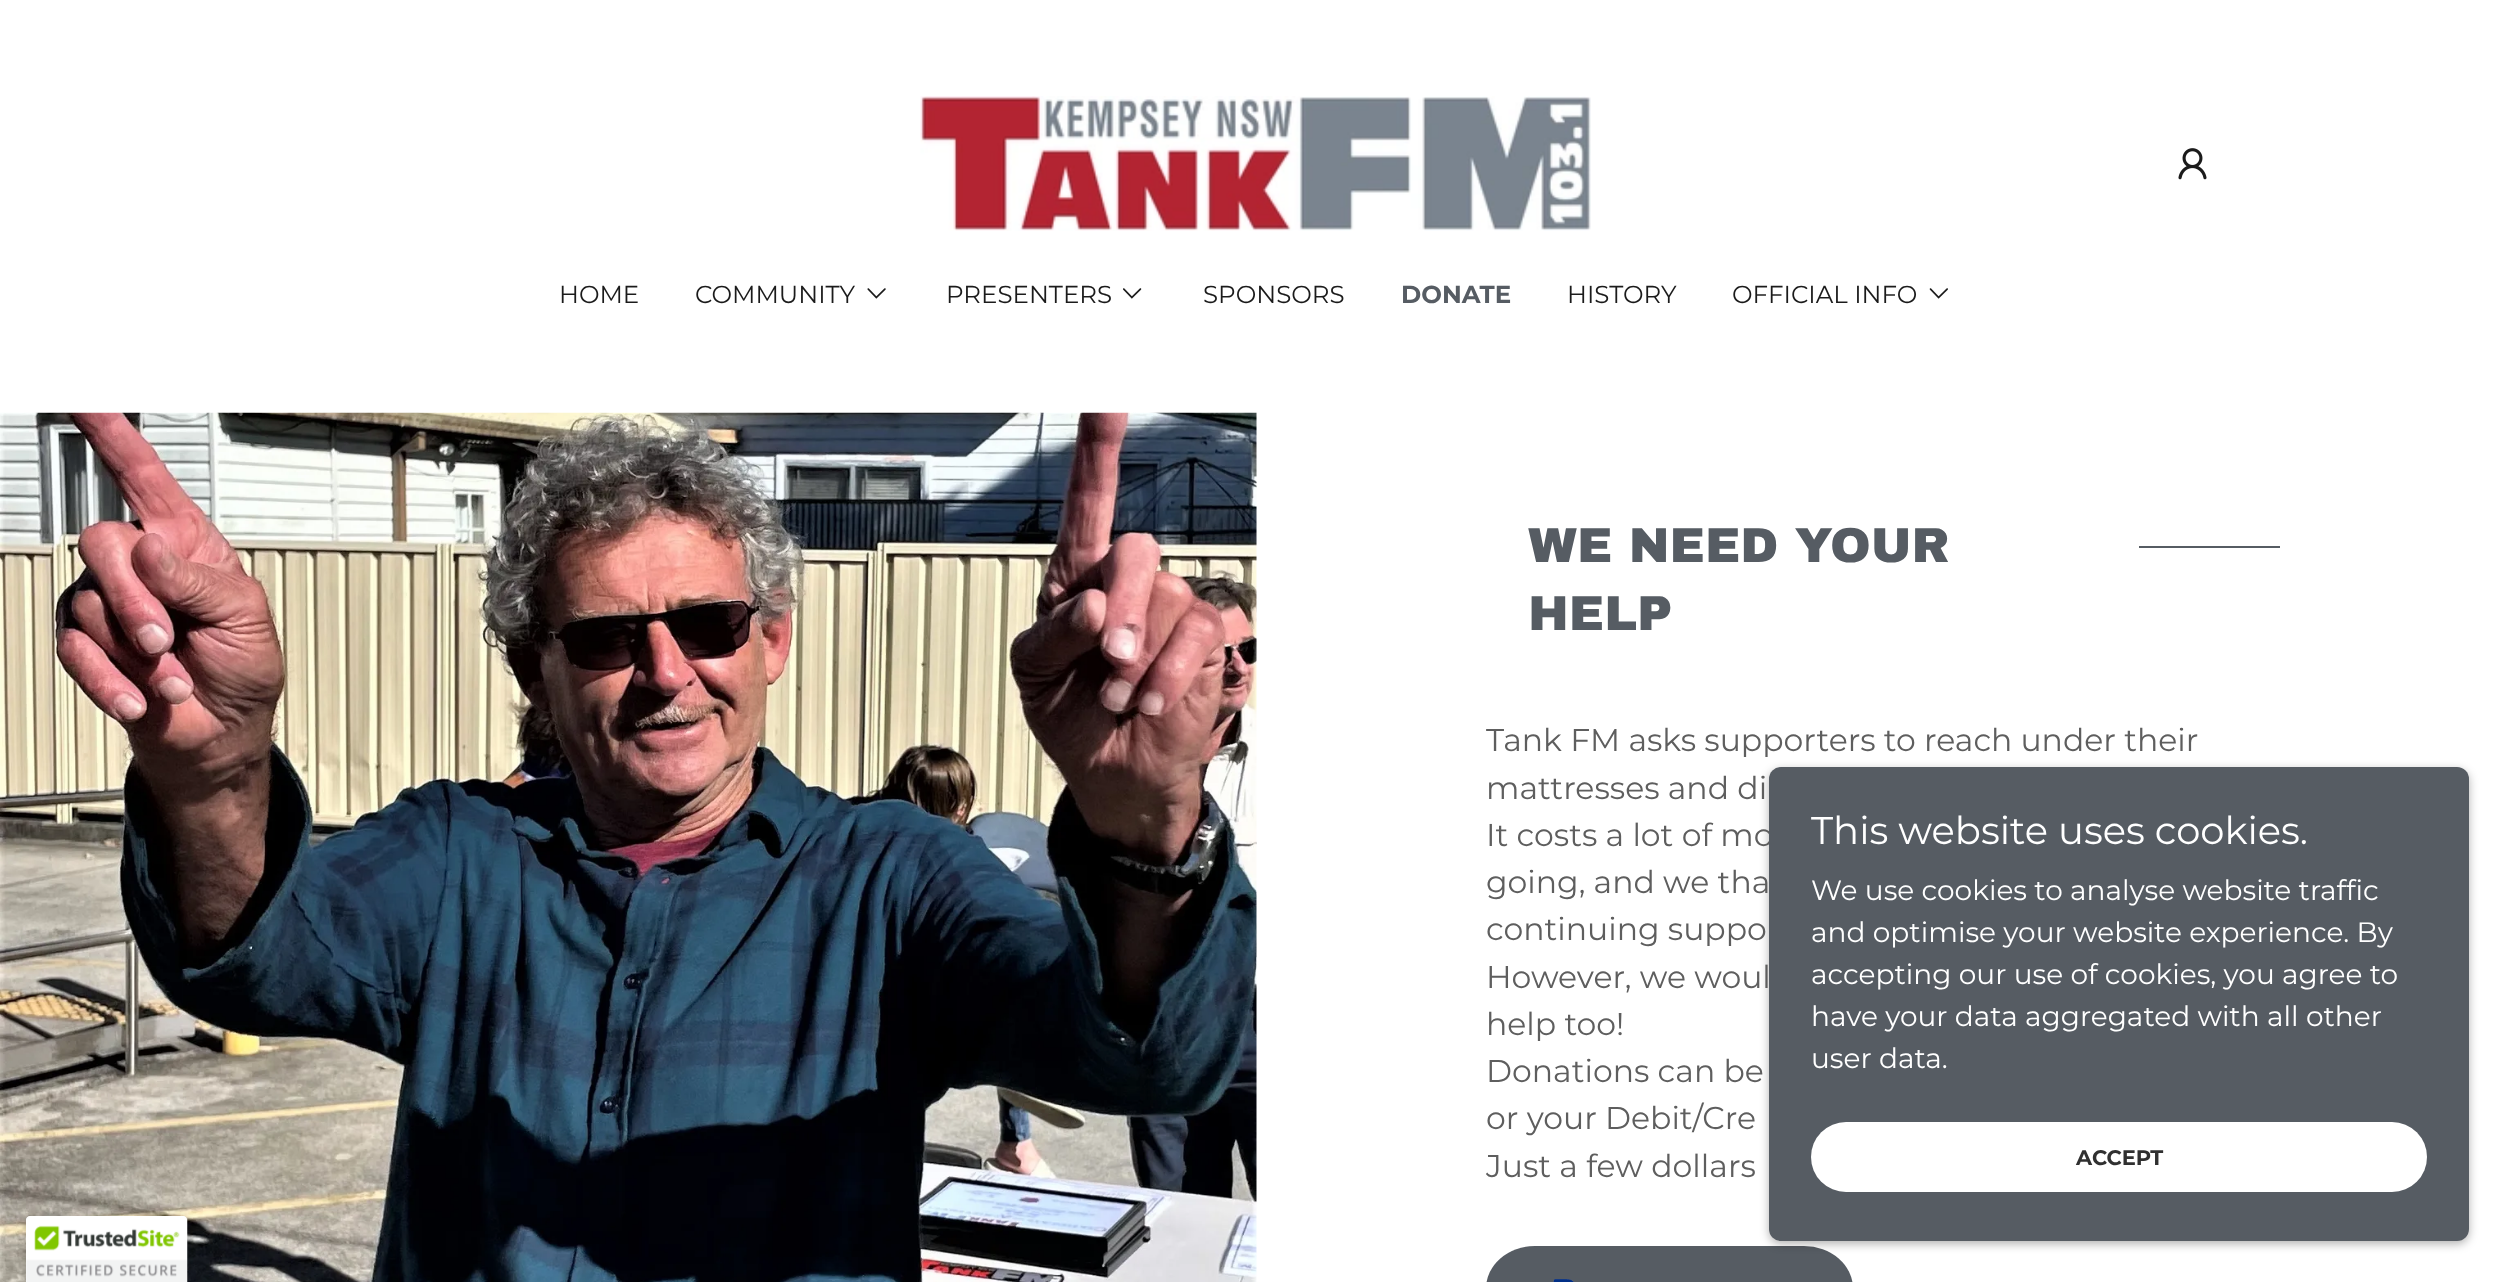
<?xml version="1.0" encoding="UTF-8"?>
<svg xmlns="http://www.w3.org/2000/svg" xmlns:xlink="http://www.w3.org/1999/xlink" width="2510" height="1282">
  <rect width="100%" height="100%" fill="#ffffff" />
  <image x="920" y="96" width="671" height="135" xlink:href="image1.png" />
  <image x="2178" y="148" width="29" height="32" xlink:href="image2.png" />
  <image x="867" y="288" width="19" height="11" xlink:href="image3.png" />
  <image x="1123" y="288" width="19" height="11" xlink:href="image4.png" />
  <image x="1929" y="288" width="19" height="11" xlink:href="image5.png" />
  <image x="0" y="412" width="1257" height="870" xlink:href="image6.png" />
  <rect x="2139" y="546" width="141" height="2" fill="#565c63" />
  <rect x="1486" y="1246" width="367" height="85" rx="49" fill="#565c63" />
  <image x="1553" y="1279" width="21" height="3" xlink:href="image7.png" />
  <rect x="1769" y="770" width="700" height="474" rx="12" fill="#000000" fill-opacity="0.3" filter="blur(5px)" />
  <rect x="26" y="1216" width="161" height="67" rx="4" fill="#000000" fill-opacity="0.2" filter="blur(4.5px)" />
  <path d="M 30 1216 h 153 c 2 0 4 2 4 4 v 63 h -161 v -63 c 0 -2 2 -4 4 -4 z" fill="#ffffff" />
  <image x="26" y="1216" width="162" height="66" xlink:href="image8.png" />
  <text x="559" y="303" style="font-family: Montserrat; font-size: 24.5px; fill: #1b1b1b">HOME</text>
  <text x="695" y="303" style="font-family: Montserrat; font-size: 24.5px; fill: #1b1b1b">COMMUNITY</text>
  <text x="946" y="303" style="font-family: Montserrat; font-size: 24.5px; fill: #1b1b1b">PRESENTERS</text>
  <text x="1203" y="303" style="font-family: Montserrat; font-size: 24.5px; fill: #1b1b1b">SPONSORS</text>
  <text x="1401" y="303" style="font-family: Montserrat; font-size: 24.5px; font-weight: bold; fill: #565c63">DONATE</text>
  <text x="1567" y="303" style="font-family: Montserrat; font-size: 24.5px; fill: #1b1b1b">HISTORY</text>
  <text x="1732" y="303" style="font-family: Montserrat; font-size: 24.5px; fill: #1b1b1b">OFFICIAL INFO</text>
  <text x="1528" y="562" style="font-family: Archivo Black; font-size: 49px; font-weight: 900; fill: #565c63">WE NEED YOUR</text>
  <text x="1528" y="630" style="font-family: Archivo Black; font-size: 49px; font-weight: 900; fill: #565c63">HELP</text>
  <text x="1486" y="751" style="font-family: Montserrat; font-size: 31.5px; fill: #5e5e5e">Tank FM asks supporters to reach under their</text>
  <text x="1486" y="799" style="font-family: Montserrat; font-size: 31.5px; fill: #5e5e5e">mattresses and di</text>
  <text x="1486" y="846" style="font-family: Montserrat; font-size: 31.5px; fill: #5e5e5e">It costs a lot of mo</text>
  <text x="1486" y="893" style="font-family: Montserrat; font-size: 31.5px; fill: #5e5e5e">going, and we tha</text>
  <text x="1486" y="940" style="font-family: Montserrat; font-size: 31.5px; fill: #5e5e5e">continuing suppo</text>
  <text x="1486" y="988" style="font-family: Montserrat; font-size: 31.5px; fill: #5e5e5e">However, we woul</text>
  <text x="1486" y="1035" style="font-family: Montserrat; font-size: 31.5px; fill: #5e5e5e">help too!</text>
  <text x="1486" y="1082" style="font-family: Montserrat; font-size: 31.5px; fill: #5e5e5e">Donations can be</text>
  <text x="1486" y="1129" style="font-family: Montserrat; font-size: 31.5px; fill: #5e5e5e">or your Debit/Cre</text>
  <text x="1486" y="1177" style="font-family: Montserrat; font-size: 31.5px; fill: #5e5e5e">Just a few dollars</text>
  <rect x="1769" y="767" width="700" height="474" rx="12" fill="#565c63" />
  <text x="1811" y="844" style="font-family: Montserrat; font-size: 38.5px; fill: #ffffff">This website uses cookies.</text>
  <text x="1811" y="900" style="font-family: Montserrat; font-size: 28px; fill: #ffffff">We use cookies to analyse website traffic</text>
  <text x="1811" y="942" style="font-family: Montserrat; font-size: 28px; fill: #ffffff">and optimise your website experience. By</text>
  <text x="1811" y="984" style="font-family: Montserrat; font-size: 28px; fill: #ffffff">accepting our use of cookies, you agree to</text>
  <text x="1811" y="1026" style="font-family: Montserrat; font-size: 28px; fill: #ffffff">have your data aggregated with all other</text>
  <text x="1811" y="1068" style="font-family: Montserrat; font-size: 28px; fill: #ffffff">user data.</text>
  <rect x="1811" y="1122" width="616" height="70" rx="35" fill="#ffffff" />
  <text x="2076" y="1165" style="font-family: Montserrat; font-size: 21px; font-weight: bold; fill: #303030">ACCEPT</text>
</svg>
